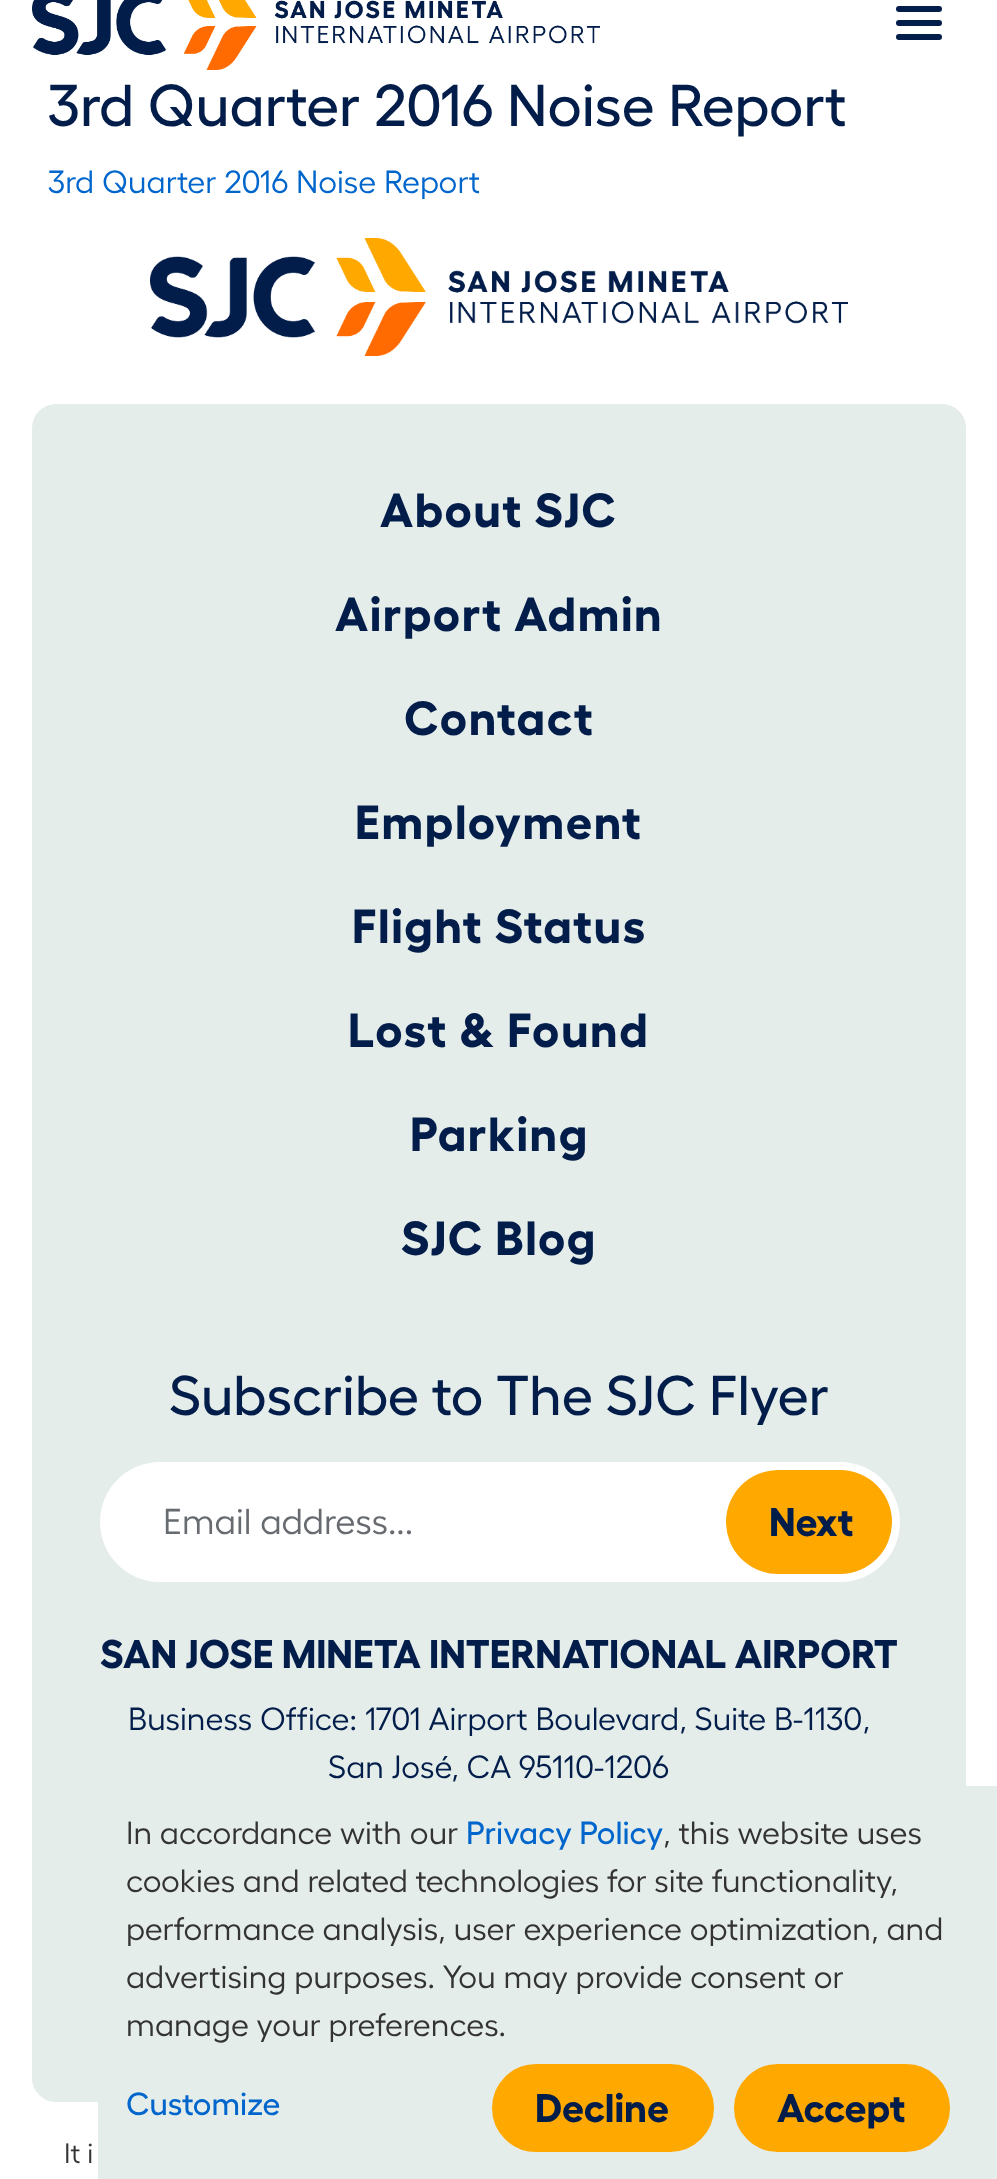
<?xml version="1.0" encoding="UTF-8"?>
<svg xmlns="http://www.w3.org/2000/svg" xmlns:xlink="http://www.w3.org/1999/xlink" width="997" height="2179">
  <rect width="100%" height="100%" fill="#ffffff" />
  <image x="32" y="0" width="568" height="70" xlink:href="image1.png" />
  <rect x="896" y="6" width="46" height="6" rx="3" fill="#021d49" />
  <rect x="896" y="20" width="46" height="6" rx="3" fill="#021d49" />
  <rect x="896" y="34" width="46" height="6" rx="3" fill="#021d49" />
  <image x="150" y="238" width="698" height="118" xlink:href="image2.png" />
  <rect x="32" y="404" width="934" height="1698" rx="24" fill="#e5edeb" />
  <rect x="100" y="1462" width="800" height="120" rx="60" fill="#ffffff" />
  <rect x="726" y="1470" width="166" height="104" rx="52" fill="#ffa800" />
  <rect x="98" y="1786" width="899" height="393" fill="#e5edeb" />
  <rect x="494" y="2066" width="218" height="84" rx="42" fill="#ffa800" stroke="#ffa800" stroke-width="4" />
  <rect x="736" y="2066" width="212" height="84" rx="42" fill="#ffa800" stroke="#ffa800" stroke-width="4" />
  <text x="48" y="126" style="font-family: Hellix; font-size: 59px; font-weight: 500; fill: #021d49">3rd Quarter 2016 Noise Report</text>
  <text x="48" y="193" style="font-family: Hellix; font-size: 32px; fill: #0066cc">3rd Quarter 2016 Noise Report</text>
  <text x="380" y="527" style="font-family: Hellix; font-size: 48px; font-weight: bold; letter-spacing: 1.6px; fill: #021d49">About SJC</text>
  <text x="335" y="631" style="font-family: Hellix; font-size: 48px; font-weight: bold; letter-spacing: 1.6px; fill: #021d49">Airport Admin</text>
  <text x="404" y="735" style="font-family: Hellix; font-size: 48px; font-weight: bold; letter-spacing: 1.6px; fill: #021d49">Contact</text>
  <text x="355" y="839" style="font-family: Hellix; font-size: 48px; font-weight: bold; letter-spacing: 1.6px; fill: #021d49">Employment</text>
  <text x="352" y="943" style="font-family: Hellix; font-size: 48px; font-weight: bold; letter-spacing: 1.6px; fill: #021d49">Flight Status</text>
  <text x="348" y="1047" style="font-family: Hellix; font-size: 48px; font-weight: bold; letter-spacing: 1.6px; fill: #021d49">Lost &amp; Found</text>
  <text x="410" y="1151" style="font-family: Hellix; font-size: 48px; font-weight: bold; letter-spacing: 1.6px; fill: #021d49">Parking</text>
  <text x="401" y="1255" style="font-family: Hellix; font-size: 48px; font-weight: bold; letter-spacing: 1.6px; fill: #021d49">SJC Blog</text>
  <text x="169" y="1415" style="font-family: Hellix; font-size: 56px; font-weight: 500; fill: #021d49">Subscribe to The SJC Flyer</text>
  <text x="163" y="1534" style="font-family: Hellix; font-size: 36px; fill: #676b70">Email address...</text>
  <text x="769" y="1536" style="font-family: Hellix; font-size: 40px; font-weight: bold; fill: #021d49">Next</text>
  <text x="100" y="1668" style="font-family: Hellix; font-size: 40px; font-weight: bold; fill: #021d49">SAN JOSE MINETA INTERNATIONAL AIRPORT</text>
  <text x="128" y="1730" style="font-family: Hellix; font-size: 32px; fill: #021d49">Business Office: 1701 Airport Boulevard, Suite B-1130,</text>
  <text x="328" y="1778" style="font-family: Hellix; font-size: 32px; fill: #021d49">San José, CA 95110-1206</text>
  <text x="64" y="2163" style="font-family: Hellix; font-size: 28px; fill: #323332">It i</text>
  <text x="126" y="1844" style="font-family: Hellix; font-size: 32px; fill: #323332">In accordance with our</text>
  <text x="466" y="1844" style="font-family: Hellix; font-size: 32px; font-weight: 500; fill: #0066cc">Privacy Policy</text>
  <text x="663" y="1844" style="font-family: Hellix; font-size: 32px; fill: #323332">, this website uses</text>
  <text x="126" y="1892" style="font-family: Hellix; font-size: 32px; fill: #323332">cookies and related technologies for site functionality,</text>
  <text x="126" y="1940" style="font-family: Hellix; font-size: 32px; fill: #323332">performance analysis, user experience optimization, and</text>
  <text x="126" y="1988" style="font-family: Hellix; font-size: 32px; fill: #323332">advertising purposes. You may provide consent or</text>
  <text x="126" y="2036" style="font-family: Hellix; font-size: 32px; fill: #323332">manage your preferences.</text>
  <text x="126" y="2115" style="font-family: Hellix; font-size: 32px; font-weight: 500; fill: #0066cc">Customize</text>
  <text x="535" y="2122" style="font-family: Hellix; font-size: 40px; font-weight: bold; fill: #021d49">Decline</text>
  <text x="777" y="2122" style="font-family: Hellix; font-size: 40px; font-weight: bold; fill: #021d49">Accept</text>
</svg>
